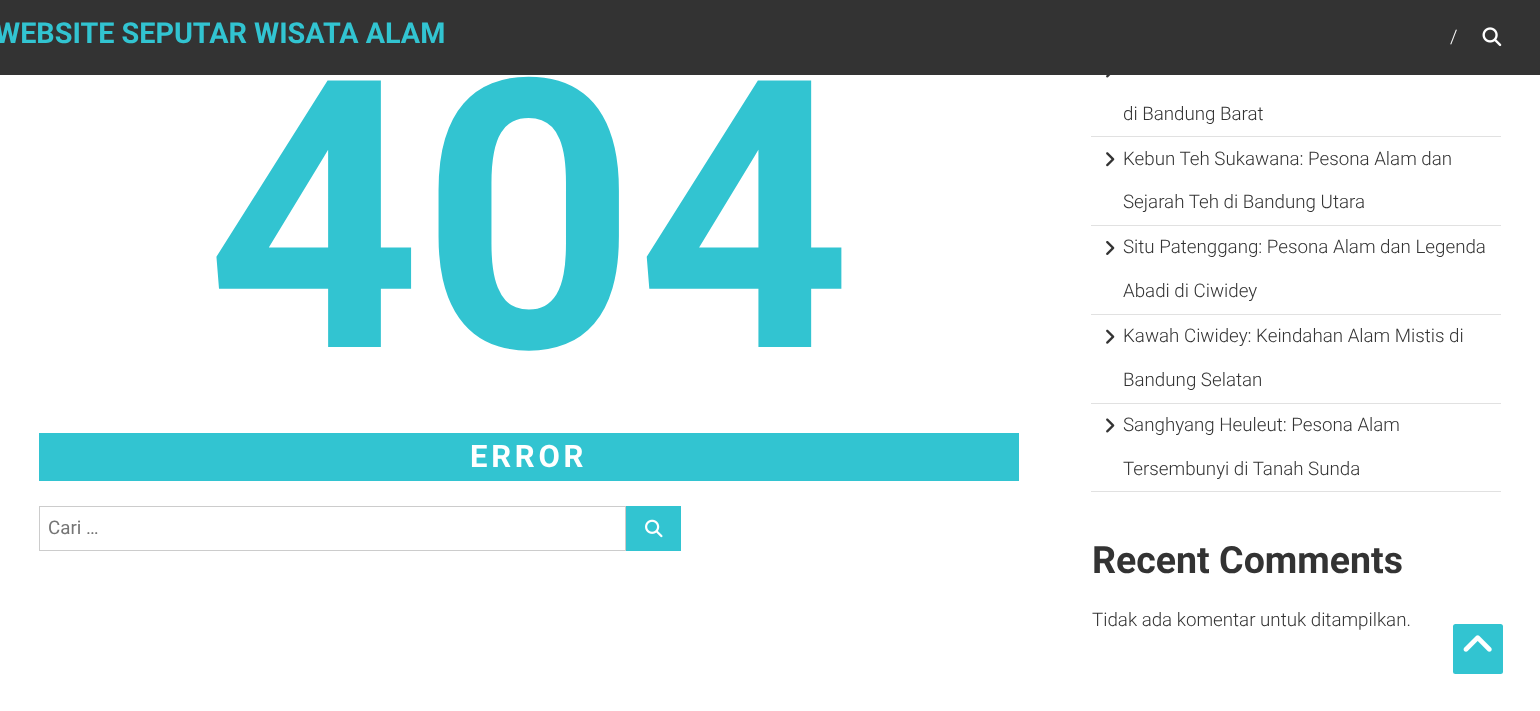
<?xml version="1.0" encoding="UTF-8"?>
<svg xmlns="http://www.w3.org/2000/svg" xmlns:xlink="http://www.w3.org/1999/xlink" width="1540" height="711">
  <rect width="100%" height="100%" fill="#ffffff" />
  <rect width="1540" height="75" fill="#333333" />
  <image x="1482" y="27" width="20" height="20" xlink:href="image1.png" />
  <rect x="39" y="433" width="980" height="48" fill="#32c4d1" />
  <rect x="39.5" y="506.5" width="586" height="44" fill="none" stroke="#cccccc" />
  <rect x="626" y="506" width="55" height="45" fill="#32c4d1" />
  <image x="645" y="519" width="18" height="19" xlink:href="image2.png" />
  <rect x="1091" y="136" width="410" height="1" fill="#e1e1e1" />
  <image x="1106" y="75" width="5" height="3" xlink:href="image3.png" />
  <rect x="1091" y="225" width="410" height="1" fill="#e1e1e1" />
  <image x="1106" y="152" width="9" height="15" xlink:href="image4.png" />
  <rect x="1091" y="314" width="410" height="1" fill="#e1e1e1" />
  <image x="1106" y="241" width="9" height="14" xlink:href="image5.png" />
  <rect x="1091" y="403" width="410" height="1" fill="#e1e1e1" />
  <image x="1106" y="329" width="9" height="15" xlink:href="image6.png" />
  <rect x="1091" y="491" width="410" height="1" fill="#e1e1e1" />
  <image x="1106" y="418" width="9" height="15" xlink:href="image7.png" />
  <rect x="1453" y="624" width="50" height="50" rx="2.5" fill="#32c4d1" />
  <image x="1463" y="635" width="29" height="17" xlink:href="image8.png" />
  <text x="-5" y="43" style="font-family: Roboto; font-size: 28.75px; font-weight: bold; fill: #32c4d1">WEBSITE SEPUTAR WISATA ALAM</text>
  <text x="1450" y="43" style="font-family: Roboto; font-size: 18.75px; font-weight: 300; fill: #ffffff">/</text>
  <text x="206" y="347" style="font-family: Roboto; font-size: 375px; font-weight: bold; fill: #32c4d1">404</text>
  <text x="470" y="467" style="font-family: Roboto; font-size: 31px; font-weight: bold; letter-spacing: 3.75px; fill: #ffffff">ERROR</text>
  <text x="48" y="534" style="font-family: Roboto; font-size: 18.75px; fill: #757575">Cari …</text>
  <text x="1123" y="120" style="font-family: Roboto; font-size: 18.75px; font-weight: 300; fill: #333333">di Bandung Barat</text>
  <text x="1123" y="165" style="font-family: Roboto; font-size: 18.75px; font-weight: 300; fill: #333333">Kebun Teh Sukawana: Pesona Alam dan</text>
  <text x="1123" y="208" style="font-family: Roboto; font-size: 18.75px; font-weight: 300; fill: #333333">Sejarah Teh di Bandung Utara</text>
  <text x="1123" y="253" style="font-family: Roboto; font-size: 18.75px; font-weight: 300; fill: #333333">Situ Patenggang: Pesona Alam dan Legenda</text>
  <text x="1123" y="297" style="font-family: Roboto; font-size: 18.75px; font-weight: 300; fill: #333333">Abadi di Ciwidey</text>
  <text x="1123" y="342" style="font-family: Roboto; font-size: 18.75px; font-weight: 300; fill: #333333">Kawah Ciwidey: Keindahan Alam Mistis di</text>
  <text x="1123" y="386" style="font-family: Roboto; font-size: 18.75px; font-weight: 300; fill: #333333">Bandung Selatan</text>
  <text x="1123" y="431" style="font-family: Roboto; font-size: 18.75px; font-weight: 300; fill: #333333">Sanghyang Heuleut: Pesona Alam</text>
  <text x="1123" y="475" style="font-family: Roboto; font-size: 18.75px; font-weight: 300; fill: #333333">Tersembunyi di Tanah Sunda</text>
  <text x="1092" y="573" style="font-family: Roboto; font-size: 37.5px; font-weight: bold; fill: #333333">Recent Comments</text>
  <text x="1092" y="626" style="font-family: Roboto; font-size: 18.75px; font-weight: 300; fill: #333333">Tidak ada komentar untuk ditampilkan.</text>
</svg>
